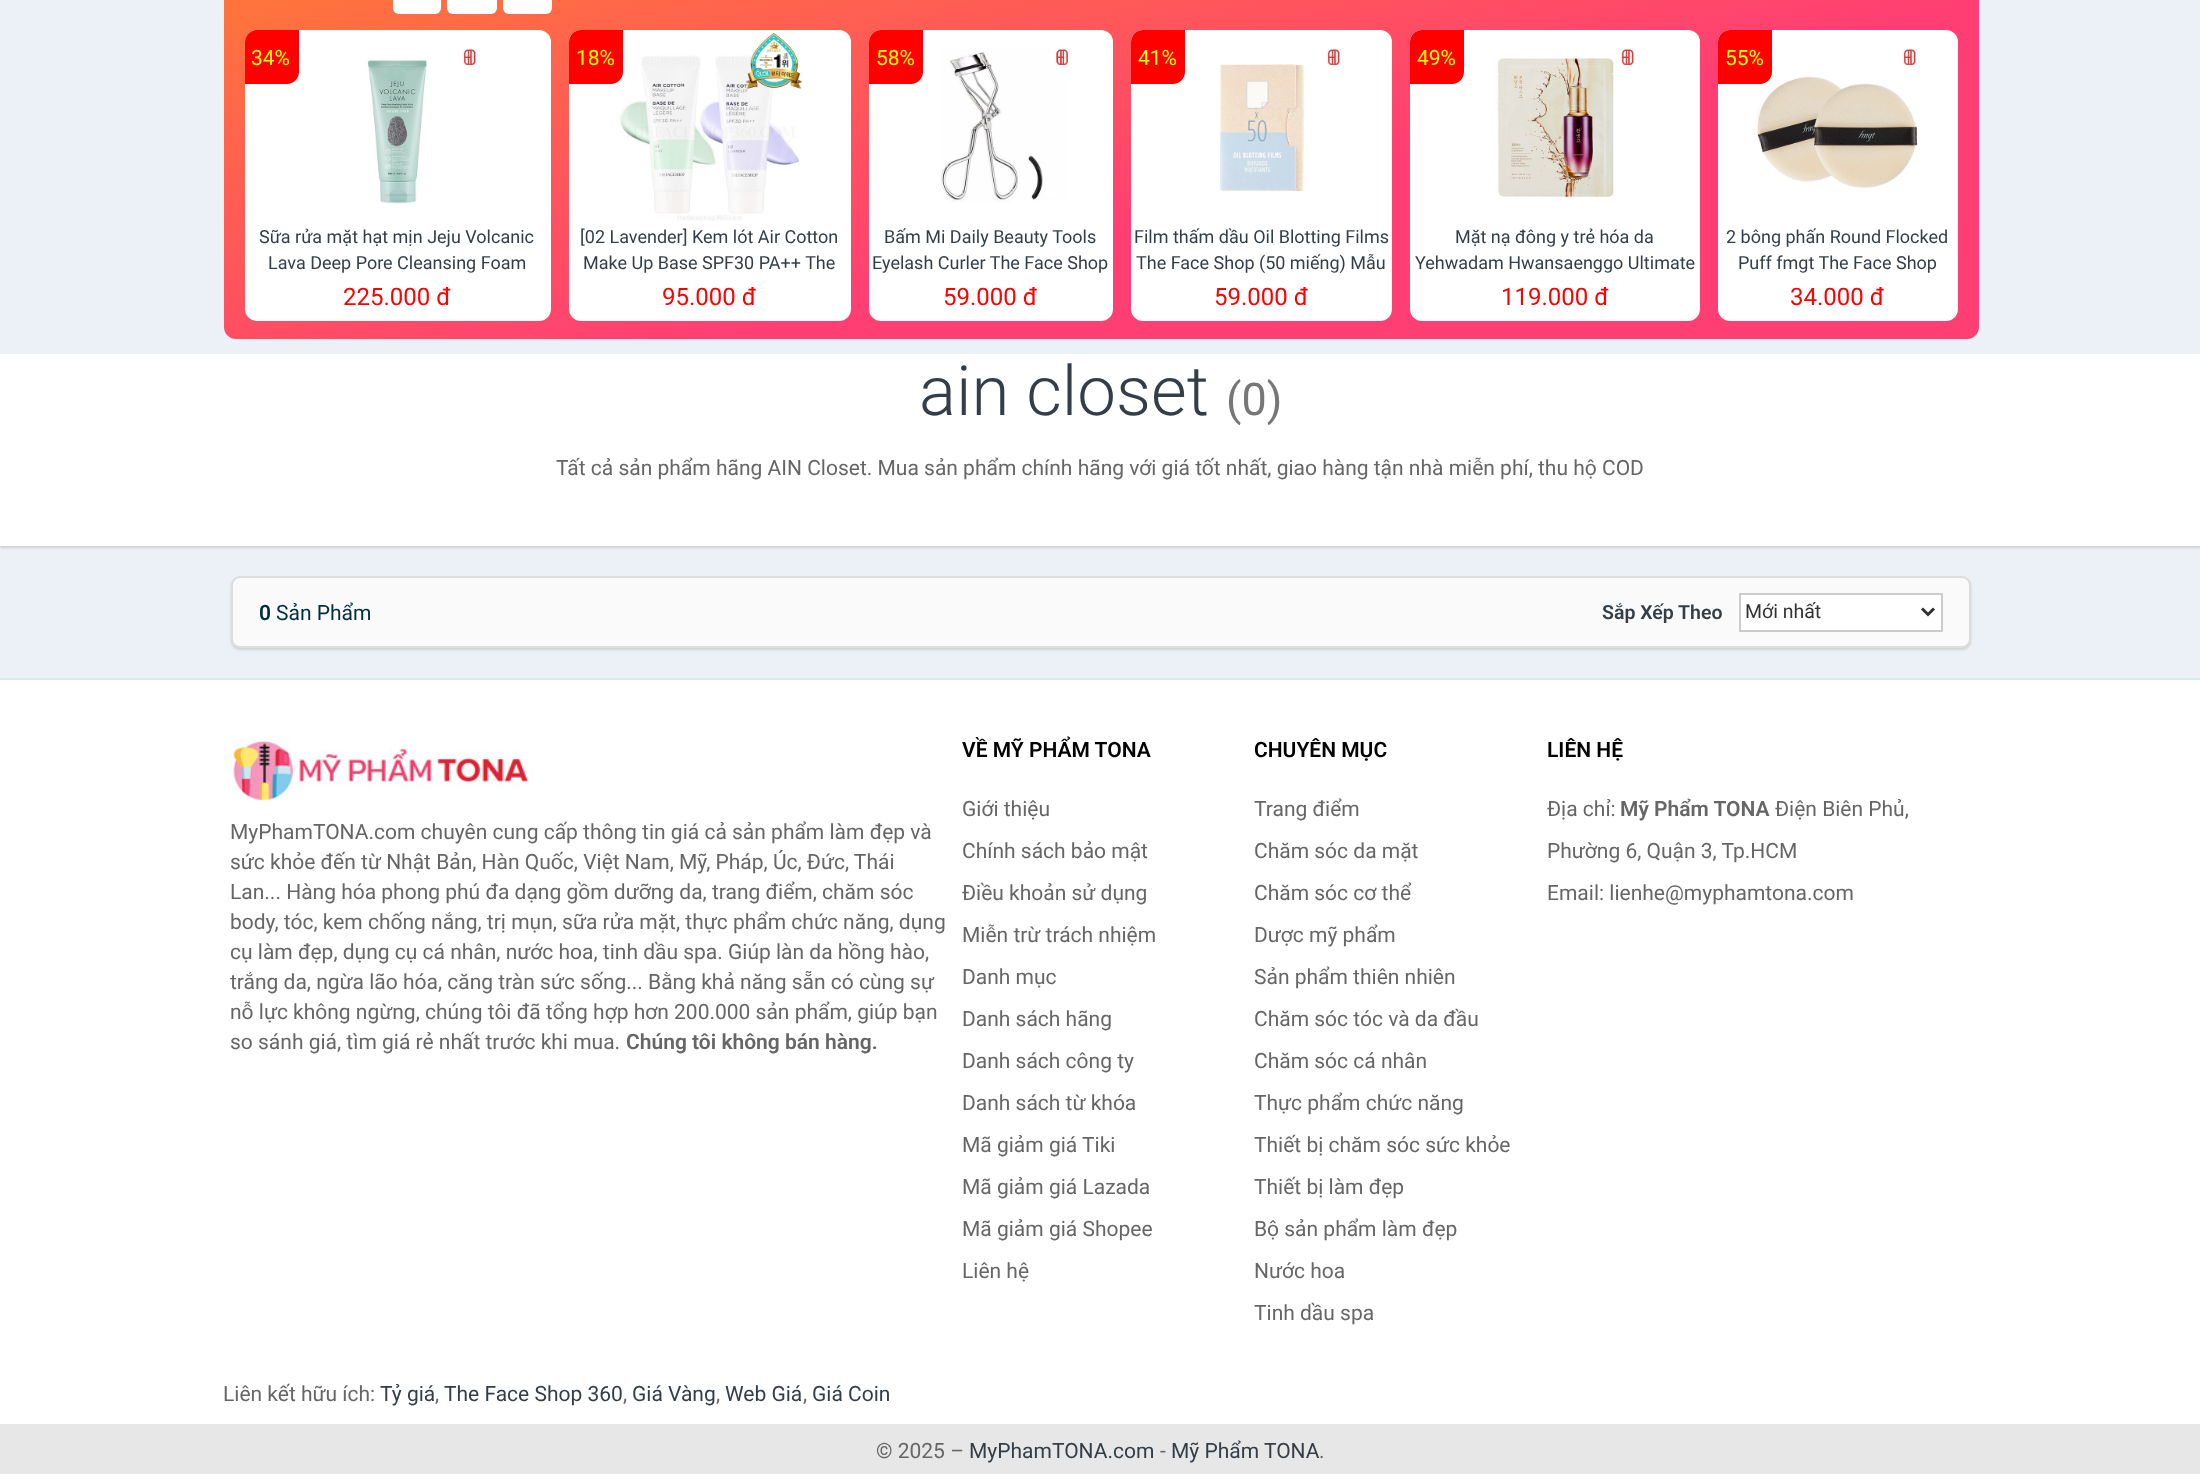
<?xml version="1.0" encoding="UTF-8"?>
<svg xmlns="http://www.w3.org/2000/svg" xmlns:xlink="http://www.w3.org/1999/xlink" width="2200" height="1474">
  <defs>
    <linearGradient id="g1" gradientUnits="userSpaceOnUse" x1="995" y1="-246" x2="1207" y2="546"><stop offset="0" stop-color="#ff7937" /><stop offset="0.6" stop-color="#ff3f73" /></linearGradient>
  </defs>
  <rect width="100%" height="100%" fill="#ffffff" />
  <rect width="2200" height="678" fill="#ecf1f7" />
  <rect x="224" y="-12" width="1755" height="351" rx="12" fill="url(#g1)" />
  <rect x="393" y="-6" width="48" height="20" rx="6" fill="#ffffff" />
  <rect x="447" y="-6" width="50" height="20" rx="6" fill="#ffffff" />
  <rect x="503" y="-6" width="49" height="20" rx="6" fill="#ffffff" />
  <rect x="245" y="30" width="306" height="291" rx="12" fill="#ffffff" />
  <path d="M 257 30 h 42 v 42 c 0 6.5 -5.5 12 -12 12 h -42 v -42 c 0 -6.5 5.5 -12 12 -12 z" fill="#ff0000" />
  <image x="366" y="49" width="112" height="156" xlink:href="image1.png" />
  <rect x="569" y="30" width="282" height="291" rx="12" fill="#ffffff" />
  <image x="619" y="33" width="184" height="188" xlink:href="image2.png" />
  <path d="M 581 30 h 42 v 42 c 0 6.5 -5.5 12 -12 12 h -42 v -42 c 0 -6.5 5.5 -12 12 -12 z" fill="#ff0000" />
  <rect x="869" y="30" width="244" height="291" rx="12" fill="#ffffff" />
  <path d="M 881 30 h 42 v 42 c 0 6.5 -5.5 12 -12 12 h -42 v -42 c 0 -6.5 5.5 -12 12 -12 z" fill="#ff0000" />
  <image x="940" y="49" width="130" height="154" xlink:href="image3.png" />
  <rect x="1131" y="30" width="261" height="291" rx="12" fill="#ffffff" />
  <path d="M 1143 30 h 42 v 42 c 0 6.5 -5.5 12 -12 12 h -42 v -42 c 0 -6.5 5.5 -12 12 -12 z" fill="#ff0000" />
  <image x="1220" y="49" width="122" height="143" xlink:href="image4.png" />
  <rect x="1410" y="30" width="290" height="291" rx="12" fill="#ffffff" />
  <path d="M 1422 30 h 42 v 42 c 0 6.5 -5.5 12 -12 12 h -42 v -42 c 0 -6.5 5.5 -12 12 -12 z" fill="#ff0000" />
  <image x="1494" y="49" width="142" height="150" xlink:href="image5.png" />
  <rect x="1718" y="30" width="240" height="291" rx="12" fill="#ffffff" />
  <image x="1756" y="49" width="162" height="139" xlink:href="image6.png" />
  <path d="M 1730 30 h 42 v 42 c 0 6.5 -5.5 12 -12 12 h -42 v -42 c 0 -6.5 5.5 -12 12 -12 z" fill="#ff0000" />
  <rect y="356" width="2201" height="192" fill="#b4b4b4" fill-opacity="0.5" filter="blur(1px)" />
  <rect y="354" width="2200" height="192" fill="#ffffff" />
  <rect x="231" y="578" width="1740" height="72" rx="9" fill="#b4b4b4" fill-opacity="0.5" filter="blur(1px)" />
  <rect x="232" y="577" width="1738" height="70" rx="8" fill="#fafafa" stroke="#dddddd" stroke-width="2" />
  <rect x="1740" y="594" width="202" height="37" fill="#ffffff" stroke="#cccccc" stroke-width="2" />
  <path d="M 1922 608.5 l 6 6 l 6 -6" fill="none" stroke="#333333" stroke-width="3" />
  <rect y="678" width="2200" height="2" fill="#dfe7ef" />
  <image x="231" y="739" width="298" height="62" xlink:href="image7.png" />
  <rect y="1424" width="2200" height="50" fill="#e7e7e7" />
  <text x="251" y="65" style="font-family: Roboto; font-size: 21px; fill: #ffff00">34%</text>
  <text x="259" y="243" style="font-family: Roboto; font-size: 18px; fill: #333e48">Sữa rửa mặt hạt mịn Jeju Volcanic</text>
  <text x="268" y="269" style="font-family: Roboto; font-size: 18px; fill: #333e48">Lava Deep Pore Cleansing Foam</text>
  <text x="343" y="305" style="font-family: Roboto; font-size: 24px; fill: #ff0000">225.000 đ</text>
  <text x="576" y="65" style="font-family: Roboto; font-size: 21px; fill: #ffff00">18%</text>
  <text x="580" y="243" style="font-family: Roboto; font-size: 18px; fill: #333e48">[02 Lavender] Kem lót Air Cotton</text>
  <text x="583" y="269" style="font-family: Roboto; font-size: 18px; fill: #333e48">Make Up Base SPF30 PA++ The</text>
  <text x="662" y="305" style="font-family: Roboto; font-size: 24px; fill: #ff0000">95.000 đ</text>
  <text x="876" y="65" style="font-family: Roboto; font-size: 21px; fill: #ffff00">58%</text>
  <text x="884" y="243" style="font-family: Roboto; font-size: 18px; fill: #333e48">Bấm Mi Daily Beauty Tools</text>
  <text x="872" y="269" style="font-family: Roboto; font-size: 18px; fill: #333e48">Eyelash Curler The Face Shop</text>
  <text x="943" y="305" style="font-family: Roboto; font-size: 24px; fill: #ff0000">59.000 đ</text>
  <text x="1138" y="65" style="font-family: Roboto; font-size: 21px; fill: #ffff00">41%</text>
  <text x="1134" y="243" style="font-family: Roboto; font-size: 18px; fill: #333e48">Film thấm dầu Oil Blotting Films</text>
  <text x="1136" y="269" style="font-family: Roboto; font-size: 18px; fill: #333e48">The Face Shop (50 miếng) Mẫu</text>
  <text x="1214" y="305" style="font-family: Roboto; font-size: 24px; fill: #ff0000">59.000 đ</text>
  <text x="1417" y="65" style="font-family: Roboto; font-size: 21px; fill: #ffff00">49%</text>
  <text x="1455" y="243" style="font-family: Roboto; font-size: 18px; fill: #333e48">Mặt nạ đông y trẻ hóa da</text>
  <text x="1415" y="269" style="font-family: Roboto; font-size: 18px; fill: #333e48">Yehwadam Hwansaenggo Ultimate</text>
  <text x="1501" y="305" style="font-family: Roboto; font-size: 24px; fill: #ff0000">119.000 đ</text>
  <text x="1725" y="65" style="font-family: Roboto; font-size: 21px; fill: #ffff00">55%</text>
  <text x="1726" y="243" style="font-family: Roboto; font-size: 18px; fill: #333e48">2 bông phấn Round Flocked</text>
  <text x="1738" y="269" style="font-family: Roboto; font-size: 18px; fill: #333e48">Puff fmgt The Face Shop</text>
  <text x="1790" y="305" style="font-family: Roboto; font-size: 24px; fill: #ff0000">34.000 đ</text>
  <text x="919" y="415" style="font-family: Roboto; font-size: 69px; font-weight: 300; fill: #333e48">ain closet</text>
  <text x="1226" y="415" style="font-family: Roboto; font-size: 45px; fill: #777777">(0)</text>
  <text x="556" y="475" style="font-family: Roboto; font-size: 21px; fill: #666666">Tất cả sản phẩm hãng AIN Closet. Mua sản phẩm chính hãng với giá tốt nhất, giao hàng tận nhà miễn phí, thu hộ COD</text>
  <text x="259" y="620" style="font-family: Roboto; font-size: 21px; font-weight: 600; fill: #012d41">0</text>
  <text x="276" y="620" style="font-family: Roboto; font-size: 21px; fill: #012d41">Sản Phẩm</text>
  <text x="1602" y="619" style="font-family: Roboto; font-size: 19.5px; font-weight: 600; fill: #333e48">Sắp Xếp Theo</text>
  <text x="1745" y="618" style="font-family: Roboto; font-size: 19.5px; fill: #333333">Mới nhất</text>
  <text x="230" y="839" style="font-family: Roboto; font-size: 21px; fill: #666666">MyPhamTONA.com chuyên cung cấp thông tin giá cả sản phẩm làm đẹp và</text>
  <text x="230" y="869" style="font-family: Roboto; font-size: 21px; fill: #666666">sức khỏe đến từ Nhật Bản, Hàn Quốc, Việt Nam, Mỹ, Pháp, Úc, Đức, Thái</text>
  <text x="230" y="899" style="font-family: Roboto; font-size: 21px; fill: #666666">Lan... Hàng hóa phong phú đa dạng gồm dưỡng da, trang điểm, chăm sóc</text>
  <text x="230" y="929" style="font-family: Roboto; font-size: 21px; fill: #666666">body, tóc, kem chống nắng, trị mụn, sữa rửa mặt, thực phẩm chức năng, dụng</text>
  <text x="230" y="959" style="font-family: Roboto; font-size: 21px; fill: #666666">cụ làm đẹp, dụng cụ cá nhân, nước hoa, tinh dầu spa. Giúp làn da hồng hào,</text>
  <text x="230" y="989" style="font-family: Roboto; font-size: 21px; fill: #666666">trắng da, ngừa lão hóa, căng tràn sức sống... Bằng khả năng sẵn có cùng sự</text>
  <text x="230" y="1019" style="font-family: Roboto; font-size: 21px; fill: #666666">nỗ lực không ngừng, chúng tôi đã tổng hợp hơn 200.000 sản phẩm, giúp bạn</text>
  <text x="230" y="1049" style="font-family: Roboto; font-size: 21px; fill: #666666">so sánh giá, tìm giá rẻ nhất trước khi mua.</text>
  <text x="626" y="1049" style="font-family: Roboto; font-size: 21px; font-weight: 600; fill: #666666">Chúng tôi không bán hàng.</text>
  <text x="962" y="757" style="font-family: Roboto; font-size: 21px; font-weight: 600; fill: #000000">VỀ MỸ PHẨM TONA</text>
  <text x="962" y="816" style="font-family: Roboto; font-size: 21px; fill: #666666">Giới thiệu</text>
  <text x="962" y="858" style="font-family: Roboto; font-size: 21px; fill: #666666">Chính sách bảo mật</text>
  <text x="962" y="900" style="font-family: Roboto; font-size: 21px; fill: #666666">Điều khoản sử dụng</text>
  <text x="962" y="942" style="font-family: Roboto; font-size: 21px; fill: #666666">Miễn trừ trách nhiệm</text>
  <text x="962" y="984" style="font-family: Roboto; font-size: 21px; fill: #666666">Danh mục</text>
  <text x="962" y="1026" style="font-family: Roboto; font-size: 21px; fill: #666666">Danh sách hãng</text>
  <text x="962" y="1068" style="font-family: Roboto; font-size: 21px; fill: #666666">Danh sách công ty</text>
  <text x="962" y="1110" style="font-family: Roboto; font-size: 21px; fill: #666666">Danh sách từ khóa</text>
  <text x="962" y="1152" style="font-family: Roboto; font-size: 21px; fill: #666666">Mã giảm giá Tiki</text>
  <text x="962" y="1194" style="font-family: Roboto; font-size: 21px; fill: #666666">Mã giảm giá Lazada</text>
  <text x="962" y="1236" style="font-family: Roboto; font-size: 21px; fill: #666666">Mã giảm giá Shopee</text>
  <text x="962" y="1278" style="font-family: Roboto; font-size: 21px; fill: #666666">Liên hệ</text>
  <text x="1254" y="757" style="font-family: Roboto; font-size: 21px; font-weight: 600; fill: #000000">CHUYÊN MỤC</text>
  <text x="1254" y="816" style="font-family: Roboto; font-size: 21px; fill: #666666">Trang điểm</text>
  <text x="1254" y="858" style="font-family: Roboto; font-size: 21px; fill: #666666">Chăm sóc da mặt</text>
  <text x="1254" y="900" style="font-family: Roboto; font-size: 21px; fill: #666666">Chăm sóc cơ thể</text>
  <text x="1254" y="942" style="font-family: Roboto; font-size: 21px; fill: #666666">Dược mỹ phẩm</text>
  <text x="1254" y="984" style="font-family: Roboto; font-size: 21px; fill: #666666">Sản phẩm thiên nhiên</text>
  <text x="1254" y="1026" style="font-family: Roboto; font-size: 21px; fill: #666666">Chăm sóc tóc và da đầu</text>
  <text x="1254" y="1068" style="font-family: Roboto; font-size: 21px; fill: #666666">Chăm sóc cá nhân</text>
  <text x="1254" y="1110" style="font-family: Roboto; font-size: 21px; fill: #666666">Thực phẩm chức năng</text>
  <text x="1254" y="1152" style="font-family: Roboto; font-size: 21px; fill: #666666">Thiết bị chăm sóc sức khỏe</text>
  <text x="1254" y="1194" style="font-family: Roboto; font-size: 21px; fill: #666666">Thiết bị làm đẹp</text>
  <text x="1254" y="1236" style="font-family: Roboto; font-size: 21px; fill: #666666">Bộ sản phẩm làm đẹp</text>
  <text x="1254" y="1278" style="font-family: Roboto; font-size: 21px; fill: #666666">Nước hoa</text>
  <text x="1254" y="1320" style="font-family: Roboto; font-size: 21px; fill: #666666">Tinh dầu spa</text>
  <text x="1547" y="757" style="font-family: Roboto; font-size: 21px; font-weight: 600; fill: #000000">LIÊN HỆ</text>
  <text x="1547" y="816" style="font-family: Roboto; font-size: 21px; fill: #666666">Địa chỉ:</text>
  <text x="1620" y="816" style="font-family: Roboto; font-size: 21px; font-weight: 600; fill: #666666">Mỹ Phẩm TONA</text>
  <text x="1775" y="816" style="font-family: Roboto; font-size: 21px; fill: #666666">Điện Biên Phủ,</text>
  <text x="1547" y="858" style="font-family: Roboto; font-size: 21px; fill: #666666">Phường 6, Quận 3, Tp.HCM</text>
  <text x="1547" y="900" style="font-family: Roboto; font-size: 21px; fill: #666666">Email: lienhe@myphamtona.com</text>
  <text x="223" y="1401" style="font-family: Roboto; font-size: 21px; fill: #666666">Liên kết hữu ích:</text>
  <text x="380" y="1401" style="font-family: Roboto; font-size: 21px; fill: #333e48">Tỷ giá</text>
  <text x="435" y="1401" style="font-family: Roboto; font-size: 21px; fill: #666666">,</text>
  <text x="444" y="1401" style="font-family: Roboto; font-size: 21px; fill: #333e48">The Face Shop 360</text>
  <text x="623" y="1401" style="font-family: Roboto; font-size: 21px; fill: #666666">,</text>
  <text x="632" y="1401" style="font-family: Roboto; font-size: 21px; fill: #333e48">Giá Vàng</text>
  <text x="716" y="1401" style="font-family: Roboto; font-size: 21px; fill: #666666">,</text>
  <text x="725" y="1401" style="font-family: Roboto; font-size: 21px; fill: #333e48">Web Giá</text>
  <text x="803" y="1401" style="font-family: Roboto; font-size: 21px; fill: #666666">,</text>
  <text x="812" y="1401" style="font-family: Roboto; font-size: 21px; fill: #333e48">Giá Coin</text>
  <text x="876" y="1458" style="font-family: Roboto; font-size: 21px; fill: #666666">© 2025 –</text>
  <text x="969" y="1458" style="font-family: Roboto; font-size: 21px; fill: #333e48">MyPhamTONA.com</text>
  <text x="1160" y="1458" style="font-family: Roboto; font-size: 21px; fill: #666666">-</text>
  <text x="1171" y="1458" style="font-family: Roboto; font-size: 21px; fill: #333e48">Mỹ Phẩm TONA</text>
  <text x="1319" y="1458" style="font-family: Roboto; font-size: 21px; fill: #666666">.</text>
</svg>
